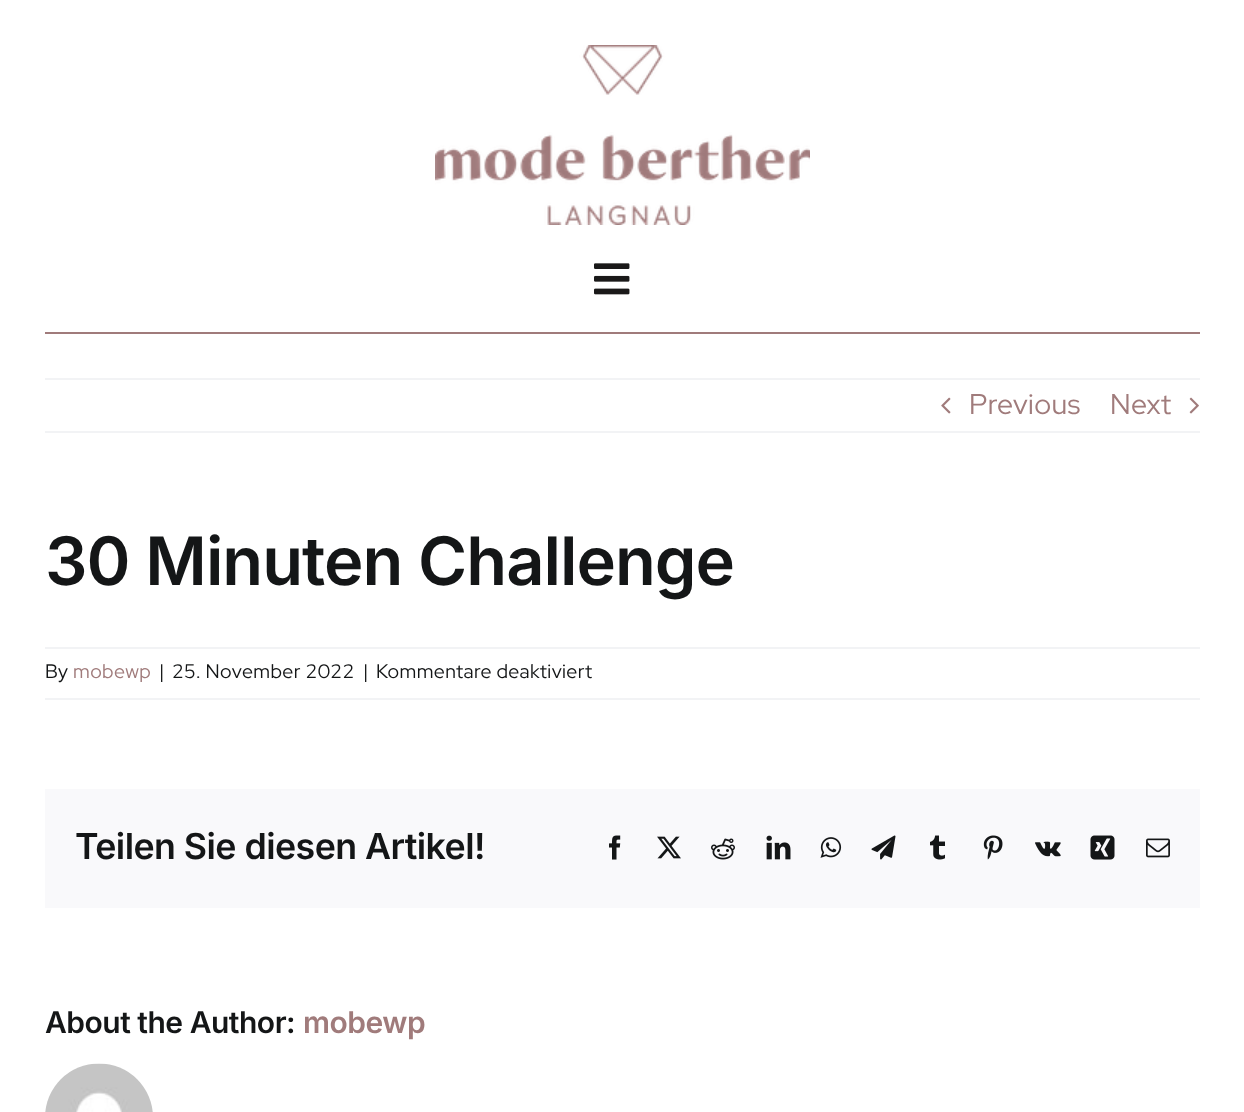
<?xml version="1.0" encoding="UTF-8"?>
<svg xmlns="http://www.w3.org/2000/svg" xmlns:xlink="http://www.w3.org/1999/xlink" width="1244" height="1112">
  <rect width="100%" height="100%" fill="#ffffff" />
  <image x="435" y="45" width="375" height="180" xlink:href="image1.png" />
  <image x="594" y="263" width="36" height="32" xlink:href="image2.png" />
  <rect x="45" y="332" width="1155" height="2" fill="#a07b7b" />
  <rect x="45" y="378" width="1155" height="2" fill="#f2f3f5" />
  <rect x="45" y="431" width="1155" height="2" fill="#f2f3f5" />
  <image x="941" y="397" width="10" height="17" xlink:href="image3.png" />
  <image x="1189" y="397" width="10" height="17" xlink:href="image4.png" />
  <rect x="45" y="647" width="1155" height="2" fill="#f2f3f5" />
  <rect x="45" y="698" width="1155" height="2" fill="#f2f3f5" />
  <rect x="45" y="789" width="1155" height="119" fill="#f9f9fb" />
  <image x="609" y="835" width="12" height="25" xlink:href="image5.png" />
  <image x="657" y="836" width="24" height="23" xlink:href="image6.png" />
  <image x="711" y="838" width="24" height="22" xlink:href="image7.png" />
  <image x="766" y="835" width="25" height="25" xlink:href="image8.png" />
  <image x="820" y="837" width="22" height="21" xlink:href="image9.png" />
  <image x="871" y="835" width="25" height="25" xlink:href="image10.png" />
  <image x="930" y="835" width="15" height="25" xlink:href="image11.png" />
  <image x="983" y="835" width="20" height="25" xlink:href="image12.png" />
  <image x="1035" y="841" width="26" height="16" xlink:href="image13.png" />
  <image x="1090" y="835" width="25" height="25" xlink:href="image14.png" />
  <image x="1146" y="838" width="24" height="20" xlink:href="image15.png" />
  <image x="45" y="1063" width="108" height="49" xlink:href="image16.png" />
  <text x="969" y="414" style="font-family: Red Hat Display; font-size: 28.5px; letter-spacing: 0.4px; fill: #a07b7b">Previous</text>
  <text x="1110" y="414" style="font-family: Red Hat Display; font-size: 28.5px; letter-spacing: 0.4px; fill: #a07b7b">Next</text>
  <text x="45" y="585" style="font-family: Inter; font-size: 66.75px; font-weight: 600; letter-spacing: -1px; fill: #141617">30 Minuten Challenge</text>
  <text x="45" y="678" style="font-family: Red Hat Display; font-size: 19.5px; letter-spacing: 0.4px; fill: #141617">By</text>
  <text x="73" y="678" style="font-family: Red Hat Display; font-size: 19.5px; letter-spacing: 0.4px; fill: #a07b7b">mobewp</text>
  <text x="159" y="678" style="font-family: Red Hat Display; font-size: 19.5px; letter-spacing: 0.4px; fill: #141617">|</text>
  <text x="172" y="678" style="font-family: Red Hat Display; font-size: 19.5px; letter-spacing: 0.4px; fill: #141617">25. November 2022</text>
  <text x="363" y="678" style="font-family: Red Hat Display; font-size: 19.5px; letter-spacing: 0.4px; fill: #141617">|</text>
  <text x="376" y="678" style="font-family: Red Hat Display; font-size: 19.5px; letter-spacing: 0.4px; fill: #141617">Kommentare deaktiviert</text>
  <text x="75" y="859" style="font-family: Inter; font-size: 35.75px; font-weight: 600; letter-spacing: -0.55px; fill: #141617">Teilen Sie diesen Artikel!</text>
  <text x="45" y="1033" style="font-family: Inter; font-size: 30px; font-weight: 600; letter-spacing: -0.5px; fill: #141617">About the Author:</text>
  <text x="303" y="1033" style="font-family: Inter; font-size: 30px; font-weight: 600; letter-spacing: -0.5px; fill: #a07b7b">mobewp</text>
</svg>
